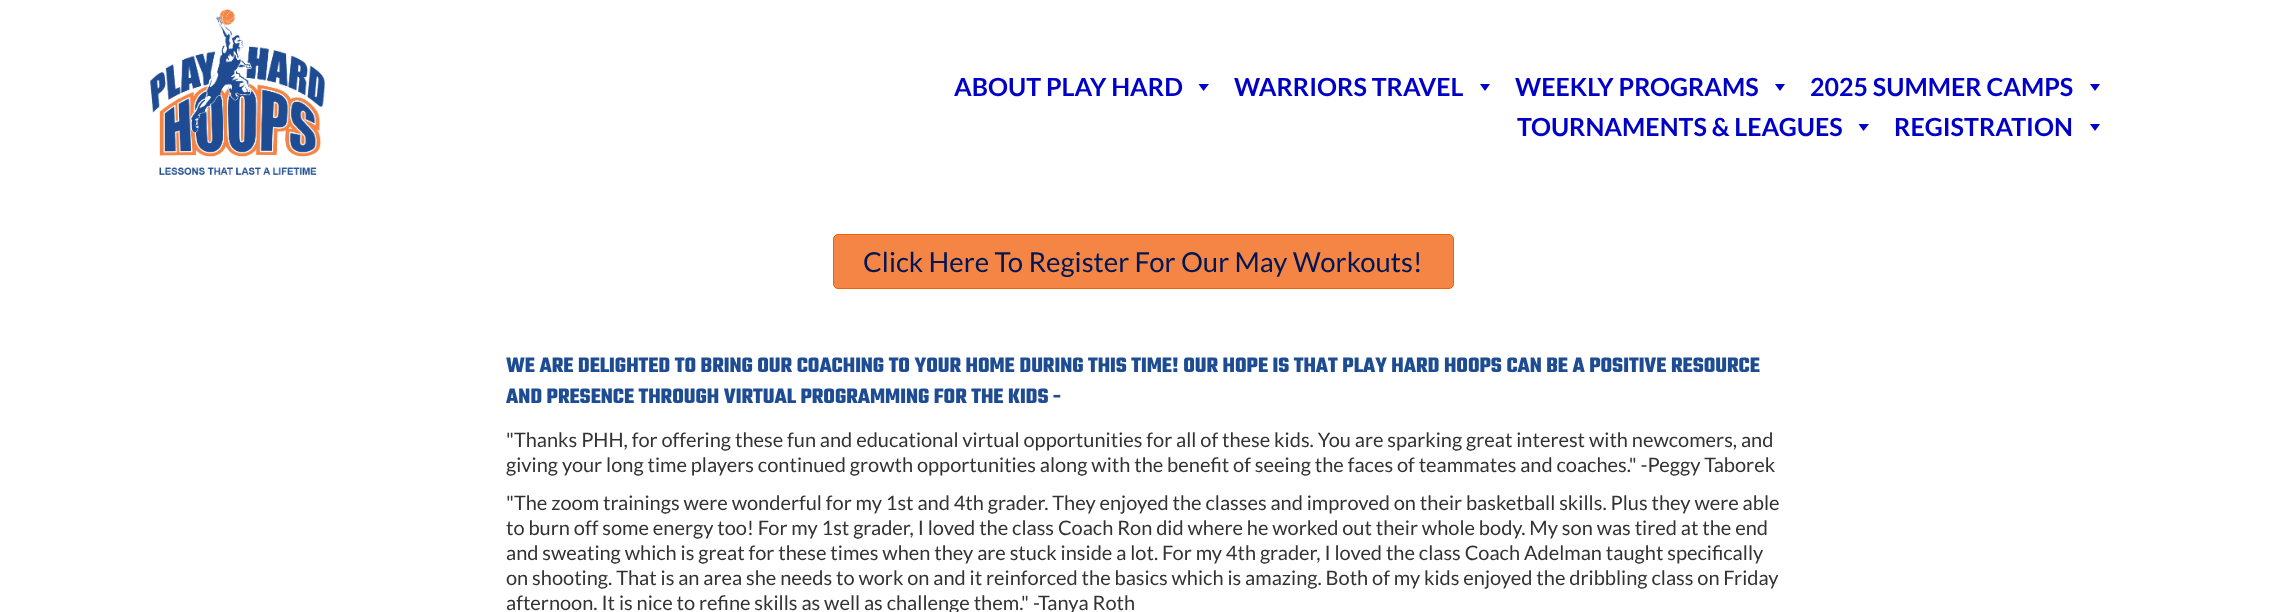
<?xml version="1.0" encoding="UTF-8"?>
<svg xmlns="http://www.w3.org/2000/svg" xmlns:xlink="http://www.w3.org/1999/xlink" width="2286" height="612">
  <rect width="100%" height="100%" fill="#ffffff" />
  <image x="150" y="9" width="176" height="166" xlink:href="image1.png" />
  <path d="M 1209 84 l -5.5 7 l -5 -7 z" fill="#0000c6" />
  <path d="M 1490 84 l -5 7 l -5 -7 z" fill="#0000c6" />
  <path d="M 1785 84 l -5 7 l -5 -7 z" fill="#0000c6" />
  <path d="M 2100 84 l -5 7 l -5 -7 z" fill="#0000c6" />
  <path d="M 1869 124 l -5.5 7 l -5 -7 z" fill="#0000c6" />
  <path d="M 2100 124 l -5 7 l -5 -7 z" fill="#0000c6" />
  <rect x="833.5" y="234.5" width="620" height="54" rx="4.5" fill="#f48545" stroke="#ee600e" />
  <text x="954" y="96" style="font-family: Lato; font-size: 25px; font-weight: bold; fill: #0000c6">ABOUT PLAY HARD</text>
  <text x="1234" y="96" style="font-family: Lato; font-size: 25px; font-weight: bold; fill: #0000c6">WARRIORS TRAVEL</text>
  <text x="1515" y="96" style="font-family: Lato; font-size: 25px; font-weight: bold; fill: #0000c6">WEEKLY PROGRAMS</text>
  <text x="1810" y="96" style="font-family: Lato; font-size: 25px; font-weight: bold; fill: #0000c6">2025 SUMMER CAMPS</text>
  <text x="1517" y="136" style="font-family: Lato; font-size: 25px; font-weight: bold; fill: #0000c6">TOURNAMENTS &amp; LEAGUES</text>
  <text x="1894" y="136" style="font-family: Lato; font-size: 25px; font-weight: bold; fill: #0000c6">REGISTRATION</text>
  <text x="863" y="272" style="font-family: Lato; font-size: 27.5px; fill: #001754">Click Here To Register For Our May Workouts!</text>
  <text x="506" y="372" style="font-family: Teko; font-size: 22.5px; font-weight: 300; fill: #1e4c92">WE ARE DELIGHTED TO BRING OUR COACHING TO YOUR HOME DURING THIS TIME! OUR HOPE IS THAT PLAY HARD HOOPS CAN BE A POSITIVE RESOURCE</text>
  <text x="506" y="403" style="font-family: Teko; font-size: 22.5px; font-weight: 300; fill: #1e4c92">AND PRESENCE THROUGH VIRTUAL PROGRAMMING FOR THE KIDS -</text>
  <text x="506" y="447" style="font-family: Lato; font-size: 20px; fill: #333333">"Thanks PHH, for offering these fun and educational virtual opportunities for all of these kids. You are sparking great interest with newcomers, and</text>
  <text x="506" y="472" style="font-family: Lato; font-size: 20px; fill: #333333">giving your long time players continued growth opportunities along with the benefit of seeing the faces of teammates and coaches." -Peggy Taborek</text>
  <text x="506" y="510" style="font-family: Lato; font-size: 20px; fill: #333333">"The zoom trainings were wonderful for my 1st and 4th grader. They enjoyed the classes and improved on their basketball skills. Plus they were able</text>
  <text x="506" y="535" style="font-family: Lato; font-size: 20px; fill: #333333">to burn off some energy too! For my 1st grader, I loved the class Coach Ron did where he worked out their whole body. My son was tired at the end</text>
  <text x="506" y="560" style="font-family: Lato; font-size: 20px; fill: #333333">and sweating which is great for these times when they are stuck inside a lot. For my 4th grader, I loved the class Coach Adelman taught specifically</text>
  <text x="506" y="585" style="font-family: Lato; font-size: 20px; fill: #333333">on shooting. That is an area she needs to work on and it reinforced the basics which is amazing. Both of my kids enjoyed the dribbling class on Friday</text>
  <text x="506" y="610" style="font-family: Lato; font-size: 20px; fill: #333333">afternoon. It is nice to refine skills as well as challenge them." -Tanya Roth</text>
</svg>
